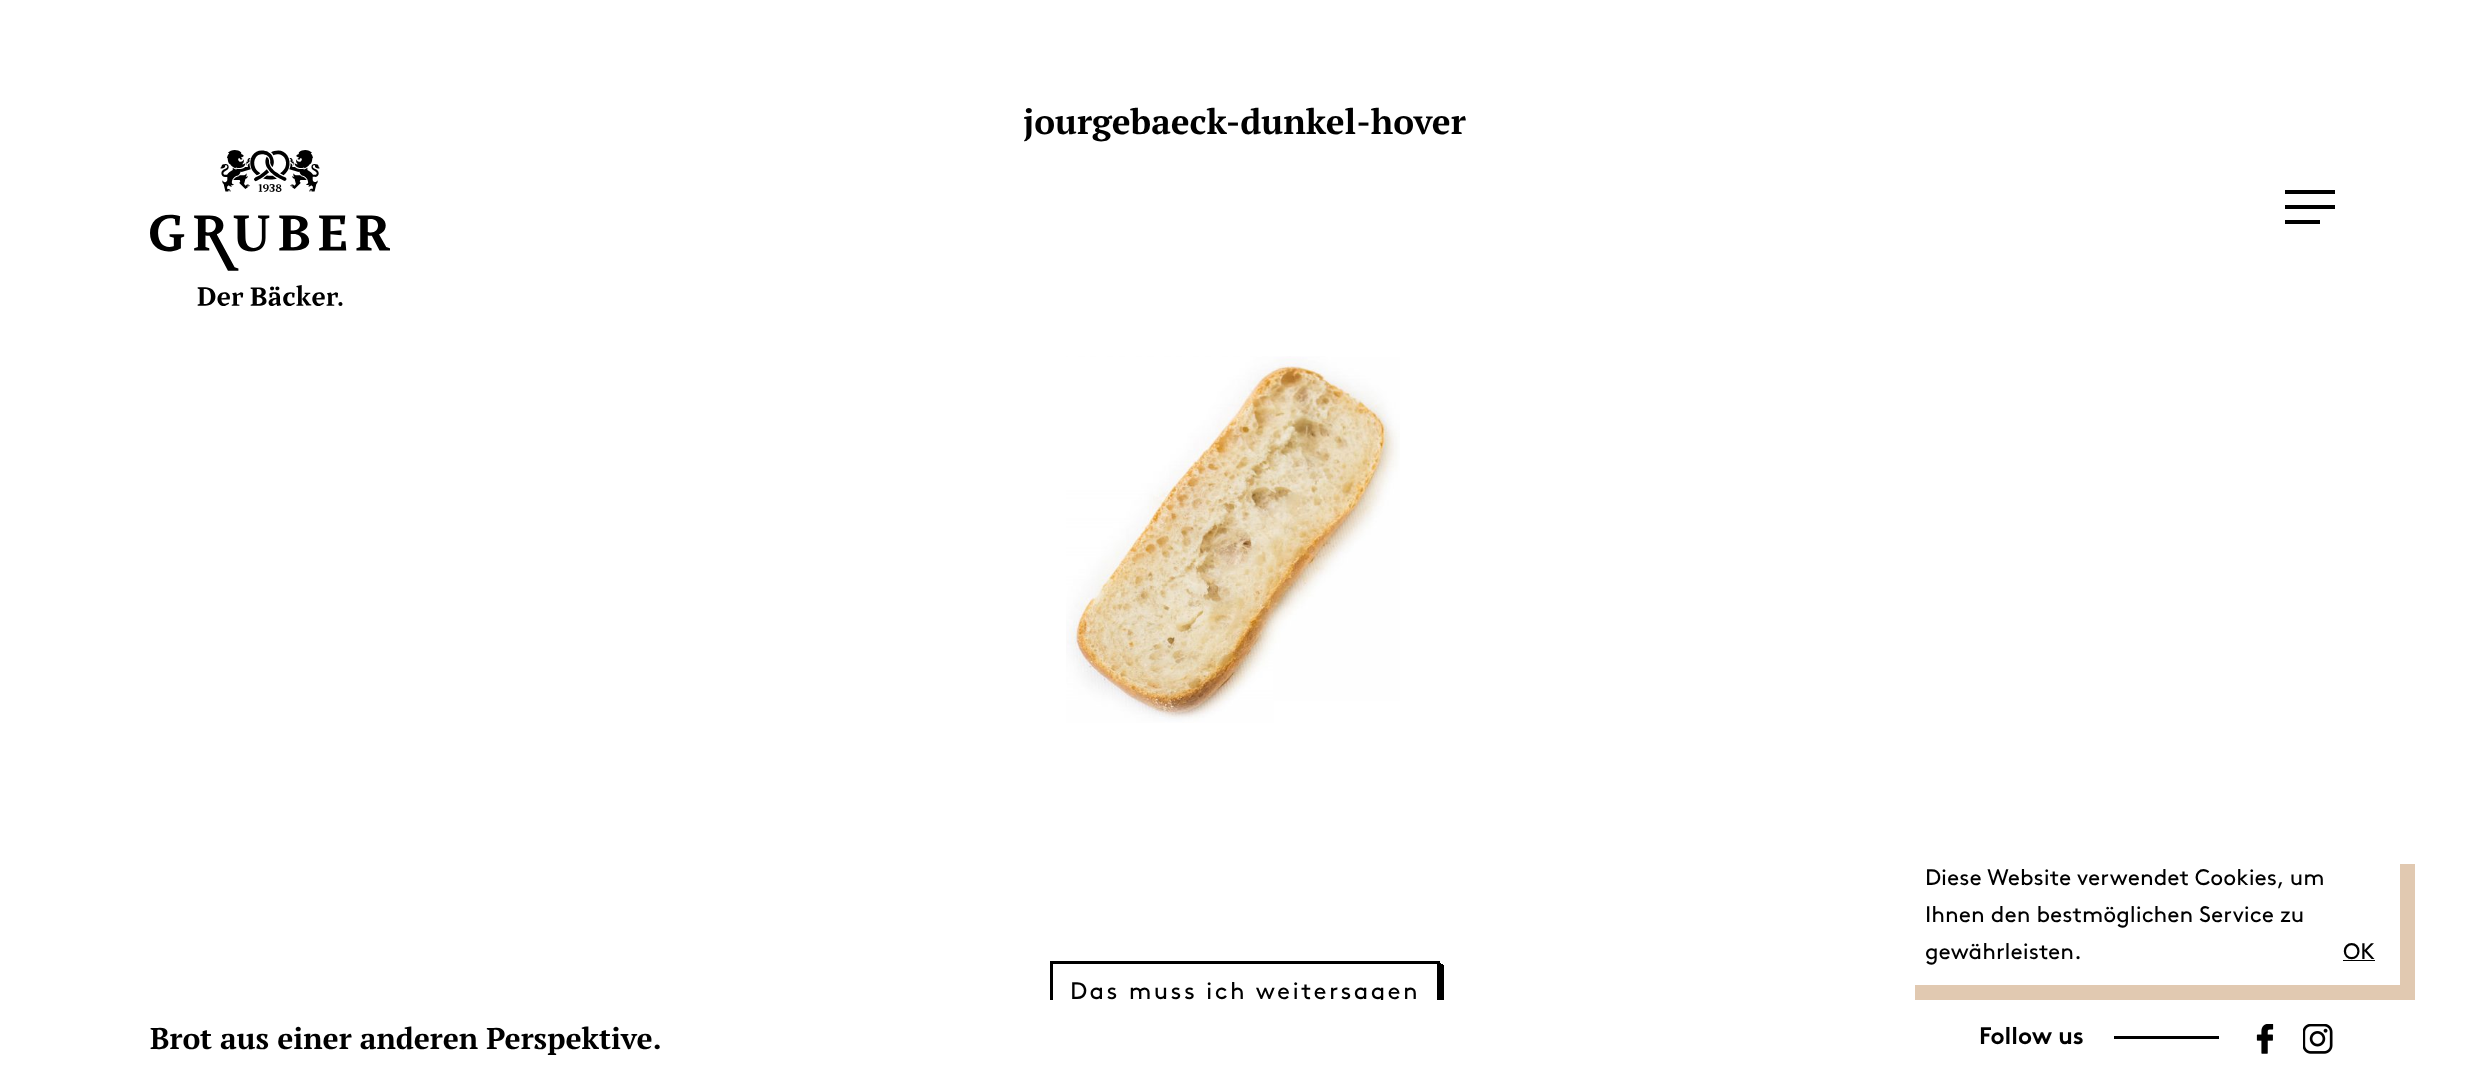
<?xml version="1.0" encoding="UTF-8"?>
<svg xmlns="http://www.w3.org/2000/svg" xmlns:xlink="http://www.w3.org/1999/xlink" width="2490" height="1075">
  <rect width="100%" height="100%" fill="#ffffff" />
  <image x="1066" y="356" width="334" height="367" xlink:href="image1.png" />
  <path d="M 1054 1019 v 4 h 390 v -58 h -4 v 54 z" fill="#000000" />
  <path d="M 1053 1019 v 2 h 390 v -57 h -3 v 55 z" fill="#000000" />
  <path d="M 1051 1019 v 1 h 390 v -57 h -1 v 56 z" fill="#000000" />
  <rect x="1051.5" y="962.5" width="387" height="55" fill="none" stroke="#000000" stroke-width="3" />
  <image x="150" y="150" width="240" height="156" xlink:href="image2.png" />
  <rect x="2285" y="205" width="50" height="4" fill="#000000" />
  <rect x="2285" y="190" width="50" height="4" fill="#000000" />
  <rect x="2285" y="220" width="35" height="4" fill="#000000" />
  <rect x="2114" y="1036" width="105" height="3" fill="#000000" />
  <image x="2256" y="1024" width="18" height="30" xlink:href="image3.png" />
  <image x="2303" y="1024" width="30" height="30" xlink:href="image4.png" />
  <path d="M 1915 985 v 15 h 500 v -136 h -15 v 121 z" fill="#e1c9b1" />
  <rect x="2343" y="960" width="32" height="1" fill="#000000" />
  <text x="1023" y="134" style="font-family: PT Serif; font-size: 35.1px; font-weight: bold; fill: #000000">jourgebaeck-dunkel-hover</text>
  <text x="1070" y="999" style="font-family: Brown; font-size: 24px; letter-spacing: 2.4px; fill: #000000">Das muss ich weitersagen</text>
  <text x="150" y="1049" style="font-family: PT Serif; font-size: 30px; font-weight: bold; fill: #000000">Brot aus einer anderen Perspektive.</text>
  <text x="1979" y="1044" style="font-family: Brown; font-size: 24px; font-weight: bold; fill: #000000">Follow us</text>
  <text x="1925" y="885" style="font-family: Brown; font-size: 22.5px; fill: #000000">Diese Website verwendet Cookies, um</text>
  <text x="1925" y="922" style="font-family: Brown; font-size: 22.5px; fill: #000000">Ihnen den bestmöglichen Service zu</text>
  <text x="1925" y="959" style="font-family: Brown; font-size: 22.5px; fill: #000000">gewährleisten.</text>
  <text x="2343" y="959" style="font-family: Brown; font-size: 22.5px; fill: #000000">OK</text>
  <rect x="1050" y="1000" width="394" height="23" fill="#ffffff" />
</svg>
